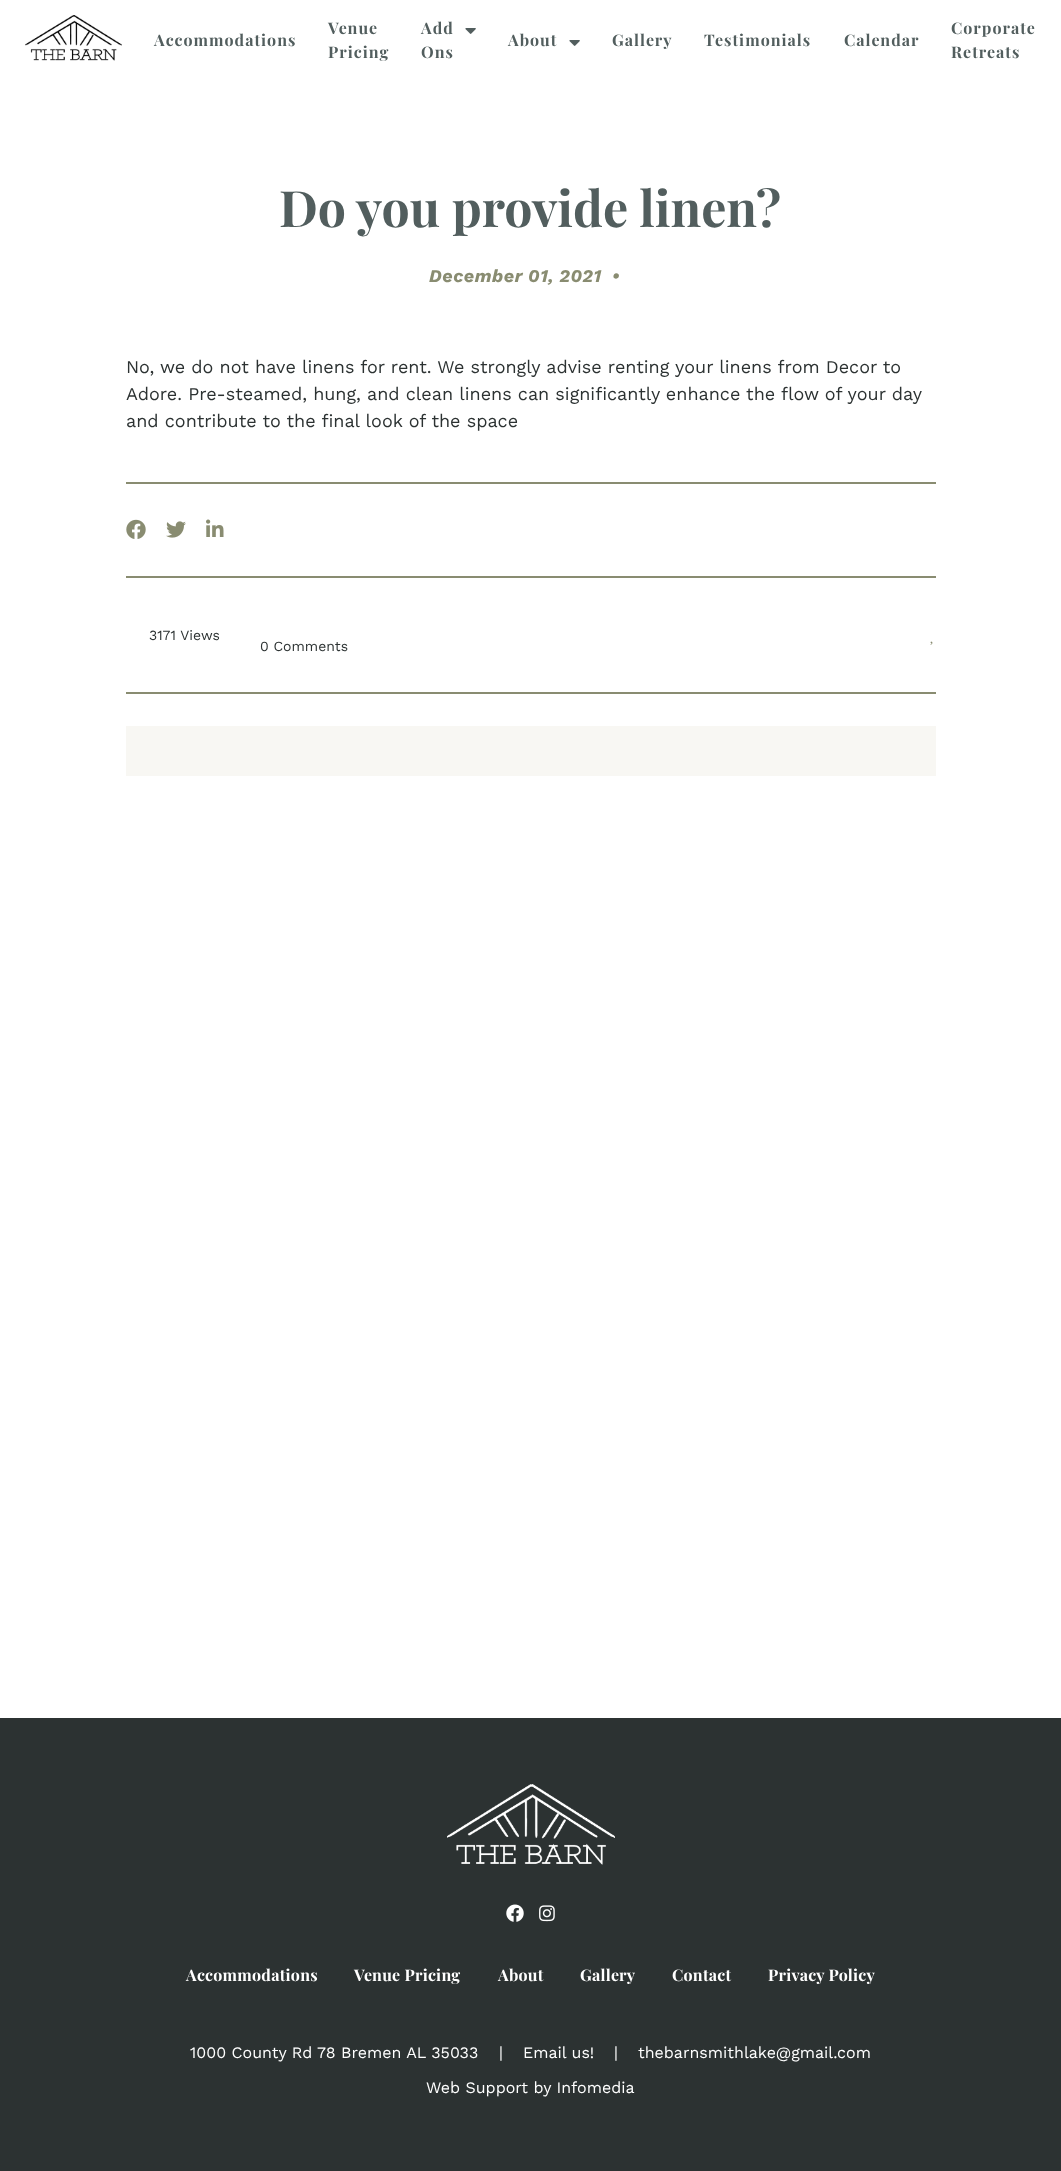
<?xml version="1.0" encoding="UTF-8"?>
<svg xmlns="http://www.w3.org/2000/svg" xmlns:xlink="http://www.w3.org/1999/xlink" width="1061" height="2171">
  <rect width="100%" height="100%" fill="#ffffff" />
  <image x="25" y="15" width="97" height="46" xlink:href="image1.png" />
  <image x="465" y="28" width="11" height="6" xlink:href="image2.png" />
  <image x="569" y="40" width="11" height="6" xlink:href="image2.png" />
  <rect x="126" y="482" width="810" height="2" fill="#898c71" />
  <image x="126" y="519" width="20" height="20" xlink:href="image3.png" />
  <image x="166" y="521" width="20" height="17" xlink:href="image4.png" />
  <image x="206" y="519" width="18" height="18" xlink:href="image5.png" />
  <rect x="126" y="576" width="810" height="2" fill="#898c71" />
  <image x="930" y="641" width="3" height="4" xlink:href="image6.png" />
  <rect x="126" y="692" width="810" height="2" fill="#898c71" />
  <rect x="126" y="726" width="810" height="50" fill="#f8f7f3" />
  <rect y="1718" width="1061" height="453" fill="#2c3232" />
  <image x="447" y="1784" width="168" height="81" xlink:href="image7.png" />
  <image x="506" y="1904" width="18" height="18" xlink:href="image8.png" />
  <image x="539" y="1905" width="16" height="17" xlink:href="image9.png" />
  <text x="154" y="46" style="font-family: Playfair Display; font-size: 16px; font-weight: bold; letter-spacing: 1px; fill: #525e5e">Accommodations</text>
  <text x="328" y="34" style="font-family: Playfair Display; font-size: 16px; font-weight: bold; letter-spacing: 1px; fill: #525e5e">Venue</text>
  <text x="328" y="58" style="font-family: Playfair Display; font-size: 16px; font-weight: bold; letter-spacing: 1px; fill: #525e5e">Pricing</text>
  <text x="421" y="34" style="font-family: Playfair Display; font-size: 16px; font-weight: bold; letter-spacing: 1px; fill: #525e5e">Add</text>
  <text x="421" y="58" style="font-family: Playfair Display; font-size: 16px; font-weight: bold; letter-spacing: 1px; fill: #525e5e">Ons</text>
  <text x="508" y="46" style="font-family: Playfair Display; font-size: 16px; font-weight: bold; letter-spacing: 1px; fill: #525e5e">About</text>
  <text x="612" y="46" style="font-family: Playfair Display; font-size: 16px; font-weight: bold; letter-spacing: 1px; fill: #525e5e">Gallery</text>
  <text x="704" y="46" style="font-family: Playfair Display; font-size: 16px; font-weight: bold; letter-spacing: 1px; fill: #525e5e">Testimonials</text>
  <text x="844" y="46" style="font-family: Playfair Display; font-size: 16px; font-weight: bold; letter-spacing: 1px; fill: #525e5e">Calendar</text>
  <text x="951" y="34" style="font-family: Playfair Display; font-size: 16px; font-weight: bold; letter-spacing: 1px; fill: #525e5e">Corporate</text>
  <text x="951" y="58" style="font-family: Playfair Display; font-size: 16px; font-weight: bold; letter-spacing: 1px; fill: #525e5e">Retreats</text>
  <text x="279" y="227" style="font-family: Playfair Display; font-size: 50px; font-weight: bold; fill: #525e5e">Do you provide linen?</text>
  <text x="429" y="282" style="font-family: Work Sans; font-size: 18px; font-weight: bold; font-style: italic; letter-spacing: 0.5px; fill: #898c71">December 01, 2021</text>
  <text x="612" y="282" style="font-family: Work Sans; font-size: 18px; font-weight: bold; font-style: italic; letter-spacing: 0.5px; fill: #898c71">•</text>
  <text x="126" y="373" style="font-family: Work Sans; font-size: 18px; fill: #2c3232">No, we do not have linens for rent. We strongly advise renting your linens from Decor to</text>
  <text x="126" y="400" style="font-family: Work Sans; font-size: 18px; fill: #2c3232">Adore. Pre-steamed, hung, and clean linens can significantly enhance the flow of your day</text>
  <text x="126" y="427" style="font-family: Work Sans; font-size: 18px; fill: #2c3232">and contribute to the final look of the space</text>
  <text x="149" y="640" style="font-family: Work Sans; font-size: 14px; fill: #2c3232">3171 Views</text>
  <text x="260" y="651" style="font-family: Work Sans; font-size: 14px; fill: #2c3232">0 Comments</text>
  <text x="186" y="1981" style="font-family: Playfair Display; font-size: 16px; font-weight: bold; letter-spacing: 0.25px; fill: #ffffff">Accommodations</text>
  <text x="354" y="1981" style="font-family: Playfair Display; font-size: 16px; font-weight: bold; letter-spacing: 0.25px; fill: #ffffff">Venue Pricing</text>
  <text x="498" y="1981" style="font-family: Playfair Display; font-size: 16px; font-weight: bold; letter-spacing: 0.25px; fill: #ffffff">About</text>
  <text x="580" y="1981" style="font-family: Playfair Display; font-size: 16px; font-weight: bold; letter-spacing: 0.25px; fill: #ffffff">Gallery</text>
  <text x="672" y="1981" style="font-family: Playfair Display; font-size: 16px; font-weight: bold; letter-spacing: 0.25px; fill: #ffffff">Contact</text>
  <text x="768" y="1981" style="font-family: Playfair Display; font-size: 16px; font-weight: bold; letter-spacing: 0.25px; fill: #ffffff">Privacy Policy</text>
  <text x="190" y="2058" style="font-family: Work Sans; font-size: 16px; fill: #ffffff">1000 County Rd 78 Bremen AL 35033</text>
  <text x="499" y="2058" style="font-family: Work Sans; font-size: 16px; fill: #ffffff">|</text>
  <text x="523" y="2058" style="font-family: Work Sans; font-size: 16px; fill: #ffffff">Email us!</text>
  <text x="614" y="2058" style="font-family: Work Sans; font-size: 16px; fill: #ffffff">|</text>
  <text x="638" y="2058" style="font-family: Work Sans; font-size: 16px; fill: #ffffff">thebarnsmithlake@gmail.com</text>
  <text x="426" y="2093" style="font-family: Work Sans; font-size: 16px; fill: #ffffff">Web Support by Infomedia</text>
</svg>
